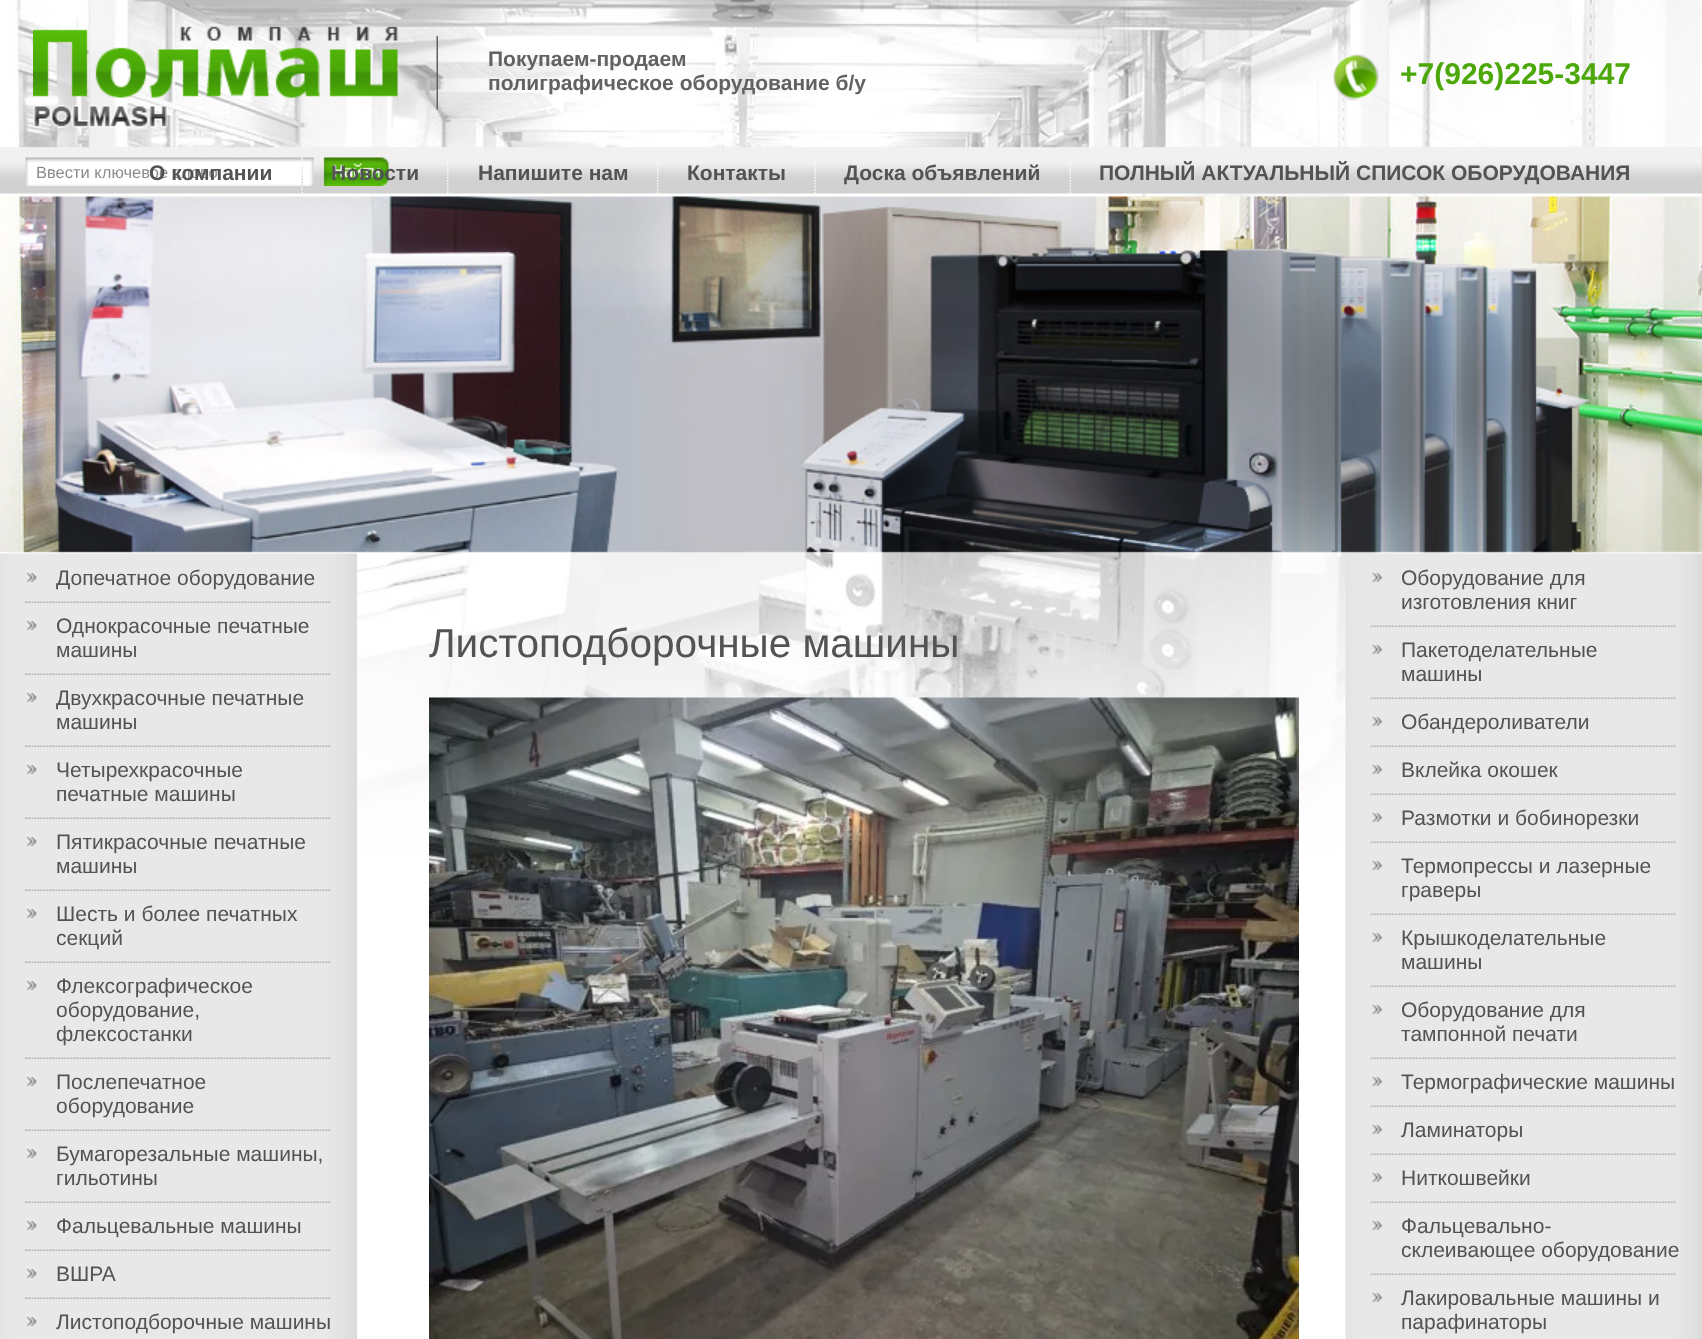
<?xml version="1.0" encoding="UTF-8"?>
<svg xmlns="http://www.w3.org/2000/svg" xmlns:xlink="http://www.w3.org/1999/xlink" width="1702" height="1339">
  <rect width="100%" height="100%" fill="#ffffff" />
  <image x="0" y="857" width="357" height="482" xlink:href="image1.png" />
  <image x="0" y="0" width="1702" height="857" xlink:href="image2.png" />
  <image x="33" y="26" width="365" height="102" xlink:href="image3.png" />
  <image x="436" y="36" width="2" height="74" xlink:href="image4.png" />
  <image x="1333" y="54" width="46" height="47" xlink:href="image5.png" />
  <image x="25" y="157" width="364" height="29" xlink:href="image6.png" />
  <image x="301" y="157" width="2" height="37" xlink:href="image7.png" />
  <image x="447" y="162" width="2" height="32" xlink:href="image8.png" />
  <image x="657" y="162" width="2" height="32" xlink:href="image9.png" />
  <image x="814" y="162" width="2" height="32" xlink:href="image10.png" />
  <image x="1069" y="147" width="2" height="47" xlink:href="image11.png" />
  <image x="0" y="553" width="357" height="304" xlink:href="image12.png" />
  <image x="25" y="601" width="306" height="2" xlink:href="image13.png" />
  <image x="27" y="573" width="10" height="9" xlink:href="image14.png" />
  <image x="25" y="673" width="306" height="2" xlink:href="image13.png" />
  <image x="27" y="621" width="10" height="9" xlink:href="image14.png" />
  <image x="25" y="745" width="306" height="2" xlink:href="image13.png" />
  <image x="27" y="693" width="10" height="9" xlink:href="image14.png" />
  <image x="25" y="817" width="306" height="2" xlink:href="image13.png" />
  <image x="27" y="765" width="10" height="9" xlink:href="image14.png" />
  <image x="25" y="889" width="306" height="2" xlink:href="image13.png" />
  <image x="27" y="837" width="10" height="9" xlink:href="image14.png" />
  <image x="25" y="961" width="306" height="2" xlink:href="image13.png" />
  <image x="27" y="909" width="10" height="9" xlink:href="image14.png" />
  <image x="25" y="1057" width="306" height="2" xlink:href="image13.png" />
  <image x="27" y="981" width="10" height="9" xlink:href="image14.png" />
  <image x="25" y="1129" width="306" height="2" xlink:href="image13.png" />
  <image x="27" y="1077" width="10" height="9" xlink:href="image14.png" />
  <image x="25" y="1201" width="306" height="2" xlink:href="image13.png" />
  <image x="27" y="1149" width="10" height="9" xlink:href="image14.png" />
  <image x="25" y="1249" width="306" height="2" xlink:href="image13.png" />
  <image x="27" y="1221" width="10" height="9" xlink:href="image14.png" />
  <image x="25" y="1297" width="306" height="2" xlink:href="image13.png" />
  <image x="27" y="1269" width="10" height="9" xlink:href="image14.png" />
  <image x="27" y="1317" width="10" height="9" xlink:href="image14.png" />
  <image x="429" y="697" width="870" height="642" xlink:href="image15.png" />
  <image x="1345" y="553" width="357" height="786" xlink:href="image16.png" />
  <image x="1370" y="625" width="306" height="2" xlink:href="image17.png" />
  <image x="1372" y="573" width="10" height="9" xlink:href="image18.png" />
  <image x="1345" y="697" width="331" height="2" xlink:href="image19.png" />
  <image x="1372" y="645" width="10" height="9" xlink:href="image18.png" />
  <image x="1345" y="745" width="331" height="2" xlink:href="image19.png" />
  <image x="1372" y="717" width="10" height="9" xlink:href="image18.png" />
  <image x="1345" y="793" width="331" height="2" xlink:href="image20.png" />
  <image x="1372" y="765" width="10" height="9" xlink:href="image18.png" />
  <image x="1345" y="841" width="331" height="2" xlink:href="image20.png" />
  <image x="1372" y="813" width="10" height="9" xlink:href="image18.png" />
  <image x="1345" y="913" width="331" height="2" xlink:href="image20.png" />
  <image x="1372" y="861" width="10" height="9" xlink:href="image18.png" />
  <image x="1345" y="985" width="331" height="2" xlink:href="image20.png" />
  <image x="1372" y="933" width="10" height="9" xlink:href="image18.png" />
  <image x="1345" y="1057" width="331" height="2" xlink:href="image20.png" />
  <image x="1372" y="1005" width="10" height="9" xlink:href="image18.png" />
  <image x="1345" y="1105" width="331" height="2" xlink:href="image20.png" />
  <image x="1372" y="1077" width="10" height="9" xlink:href="image18.png" />
  <image x="1345" y="1153" width="331" height="2" xlink:href="image20.png" />
  <image x="1372" y="1125" width="10" height="9" xlink:href="image18.png" />
  <image x="1345" y="1201" width="331" height="2" xlink:href="image20.png" />
  <image x="1372" y="1173" width="10" height="9" xlink:href="image18.png" />
  <image x="1345" y="1273" width="331" height="2" xlink:href="image20.png" />
  <image x="1372" y="1221" width="10" height="9" xlink:href="image18.png" />
  <image x="1372" y="1293" width="10" height="9" xlink:href="image18.png" />
  <text x="488" y="66" style="font-family: Liberation Sans; font-size: 21px; font-weight: bold; fill: #626262">Покупаем-продаем</text>
  <text x="488" y="90" style="font-family: Liberation Sans; font-size: 21px; font-weight: bold; fill: #626262">полиграфическое оборудование б/у</text>
  <text x="1400" y="84" style="font-family: Liberation Sans; font-size: 30px; font-weight: bold; fill: #4ba808">+7(926)225-3447</text>
  <text x="36" y="178" style="font-family: Liberation Sans; font-size: 16.5px; fill: #8b8b8b">Ввести ключевое слово</text>
  <text x="149" y="180" style="font-family: Liberation Sans; font-size: 21px; font-weight: bold; fill: #535353">О компании</text>
  <text x="331" y="180" style="font-family: Liberation Sans; font-size: 21px; font-weight: bold; fill: #535353">Новости</text>
  <text x="478" y="180" style="font-family: Liberation Sans; font-size: 21px; font-weight: bold; fill: #535353">Напишите нам</text>
  <text x="687" y="180" style="font-family: Liberation Sans; font-size: 21px; font-weight: bold; fill: #535353">Контакты</text>
  <text x="844" y="180" style="font-family: Liberation Sans; font-size: 21px; font-weight: bold; fill: #535353">Доска объявлений</text>
  <text x="1099" y="180" style="font-family: Liberation Sans; font-size: 21px; font-weight: bold; fill: #535353">ПОЛНЫЙ АКТУАЛЬНЫЙ СПИСОК ОБОРУДОВАНИЯ</text>
  <text x="56" y="585" style="font-family: Liberation Sans; font-size: 21px; fill: #535353">Допечатное оборудование</text>
  <text x="56" y="633" style="font-family: Liberation Sans; font-size: 21px; fill: #535353">Однокрасочные печатные</text>
  <text x="56" y="657" style="font-family: Liberation Sans; font-size: 21px; fill: #535353">машины</text>
  <text x="56" y="705" style="font-family: Liberation Sans; font-size: 21px; fill: #535353">Двухкрасочные печатные</text>
  <text x="56" y="729" style="font-family: Liberation Sans; font-size: 21px; fill: #535353">машины</text>
  <text x="56" y="777" style="font-family: Liberation Sans; font-size: 21px; fill: #535353">Четырехкрасочные</text>
  <text x="56" y="801" style="font-family: Liberation Sans; font-size: 21px; fill: #535353">печатные машины</text>
  <text x="56" y="849" style="font-family: Liberation Sans; font-size: 21px; fill: #535353">Пятикрасочные печатные</text>
  <text x="56" y="873" style="font-family: Liberation Sans; font-size: 21px; fill: #535353">машины</text>
  <text x="56" y="921" style="font-family: Liberation Sans; font-size: 21px; fill: #535353">Шесть и более печатных</text>
  <text x="56" y="945" style="font-family: Liberation Sans; font-size: 21px; fill: #535353">секций</text>
  <text x="56" y="993" style="font-family: Liberation Sans; font-size: 21px; fill: #535353">Флексографическое</text>
  <text x="56" y="1017" style="font-family: Liberation Sans; font-size: 21px; fill: #535353">оборудование,</text>
  <text x="56" y="1041" style="font-family: Liberation Sans; font-size: 21px; fill: #535353">флексостанки</text>
  <text x="56" y="1089" style="font-family: Liberation Sans; font-size: 21px; fill: #535353">Послепечатное</text>
  <text x="56" y="1113" style="font-family: Liberation Sans; font-size: 21px; fill: #535353">оборудование</text>
  <text x="56" y="1161" style="font-family: Liberation Sans; font-size: 21px; fill: #535353">Бумагорезальные машины,</text>
  <text x="56" y="1185" style="font-family: Liberation Sans; font-size: 21px; fill: #535353">гильотины</text>
  <text x="56" y="1233" style="font-family: Liberation Sans; font-size: 21px; fill: #535353">Фальцевальные машины</text>
  <text x="56" y="1281" style="font-family: Liberation Sans; font-size: 21px; fill: #535353">ВШРА</text>
  <text x="56" y="1329" style="font-family: Liberation Sans; font-size: 21px; fill: #535353">Листоподборочные машины</text>
  <text x="429" y="657" style="font-family: Liberation Sans; font-size: 40.5px; fill: #535353">Листоподборочные машины</text>
  <text x="1401" y="585" style="font-family: Liberation Sans; font-size: 21px; fill: #535353">Оборудование для</text>
  <text x="1401" y="609" style="font-family: Liberation Sans; font-size: 21px; fill: #535353">изготовления книг</text>
  <text x="1401" y="657" style="font-family: Liberation Sans; font-size: 21px; fill: #535353">Пакетоделательные</text>
  <text x="1401" y="681" style="font-family: Liberation Sans; font-size: 21px; fill: #535353">машины</text>
  <text x="1401" y="729" style="font-family: Liberation Sans; font-size: 21px; fill: #535353">Обандероливатели</text>
  <text x="1401" y="777" style="font-family: Liberation Sans; font-size: 21px; fill: #535353">Вклейка окошек</text>
  <text x="1401" y="825" style="font-family: Liberation Sans; font-size: 21px; fill: #535353">Размотки и бобинорезки</text>
  <text x="1401" y="873" style="font-family: Liberation Sans; font-size: 21px; fill: #535353">Термопрессы и лазерные</text>
  <text x="1401" y="897" style="font-family: Liberation Sans; font-size: 21px; fill: #535353">граверы</text>
  <text x="1401" y="945" style="font-family: Liberation Sans; font-size: 21px; fill: #535353">Крышкоделательные</text>
  <text x="1401" y="969" style="font-family: Liberation Sans; font-size: 21px; fill: #535353">машины</text>
  <text x="1401" y="1017" style="font-family: Liberation Sans; font-size: 21px; fill: #535353">Оборудование для</text>
  <text x="1401" y="1041" style="font-family: Liberation Sans; font-size: 21px; fill: #535353">тампонной печати</text>
  <text x="1401" y="1089" style="font-family: Liberation Sans; font-size: 21px; fill: #535353">Термографические машины</text>
  <text x="1401" y="1137" style="font-family: Liberation Sans; font-size: 21px; fill: #535353">Ламинаторы</text>
  <text x="1401" y="1185" style="font-family: Liberation Sans; font-size: 21px; fill: #535353">Ниткошвейки</text>
  <text x="1401" y="1233" style="font-family: Liberation Sans; font-size: 21px; fill: #535353">Фальцевально-</text>
  <text x="1401" y="1257" style="font-family: Liberation Sans; font-size: 21px; fill: #535353">склеивающее оборудование</text>
  <text x="1401" y="1305" style="font-family: Liberation Sans; font-size: 21px; fill: #535353">Лакировальные машины и</text>
  <text x="1401" y="1329" style="font-family: Liberation Sans; font-size: 21px; fill: #535353">парафинаторы</text>
</svg>
